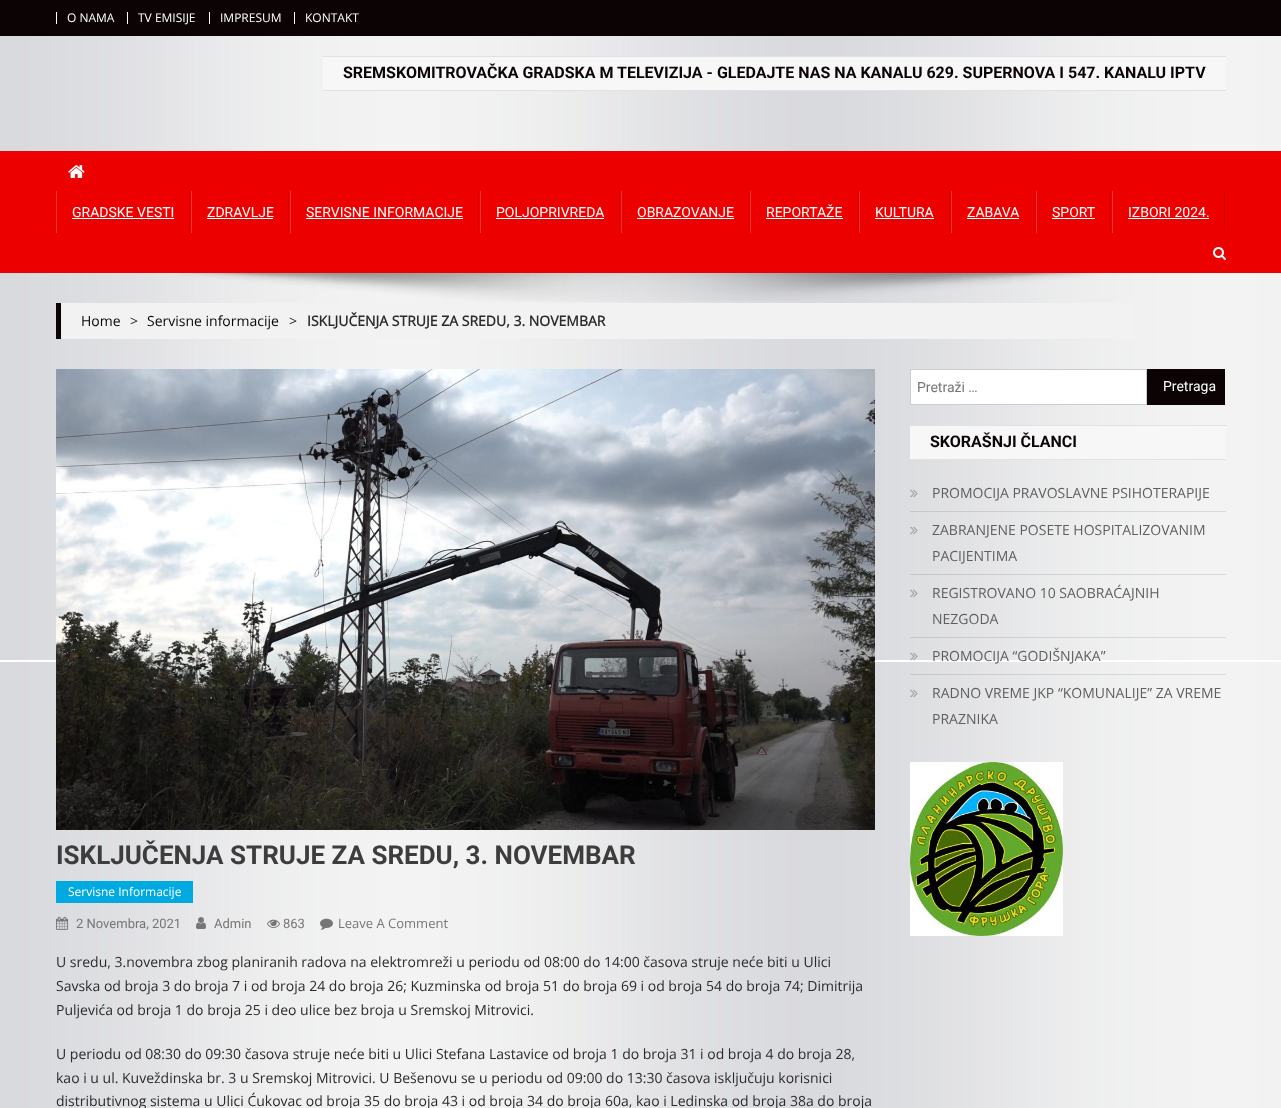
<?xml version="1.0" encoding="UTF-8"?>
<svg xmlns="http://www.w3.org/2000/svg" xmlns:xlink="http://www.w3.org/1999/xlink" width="1281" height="1108">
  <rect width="100%" height="100%" fill="#ffffff" />
  <image x="0" y="36" width="1281" height="1072" xlink:href="image1.png" />
  <rect width="1281" height="36" fill="#0c0404" />
  <rect x="56" y="12" width="1" height="12" fill="#ffffff" />
  <rect x="127" y="12" width="1" height="12" fill="#ffffff" />
  <rect x="209" y="12" width="1" height="12" fill="#ffffff" />
  <rect x="294" y="12" width="1" height="12" fill="#ffffff" />
  <rect x="323" y="57" width="903" height="33" fill="#f7f7f7" />
  <rect x="323" y="56" width="903" height="1" fill="#e1e1e1" />
  <rect x="323" y="90" width="903" height="1" fill="#e1e1e1" />
  <rect y="151" width="1281" height="122" fill="#ed0000" />
  <image x="68" y="165" width="17" height="13" xlink:href="image2.png" />
  <rect x="189" y="191" width="1" height="42" fill="#da0000" />
  <rect x="56" y="191" width="1" height="42" fill="#f13333" />
  <rect x="72" y="218" width="102" height="1" fill="#ffffff" />
  <rect x="288" y="191" width="1" height="42" fill="#da0000" />
  <rect x="191" y="191" width="1" height="42" fill="#f13333" />
  <rect x="207" y="218" width="66" height="1" fill="#ffffff" />
  <rect x="478" y="191" width="1" height="42" fill="#da0000" />
  <rect x="290" y="191" width="1" height="42" fill="#f13333" />
  <rect x="306" y="218" width="157" height="1" fill="#ffffff" />
  <rect x="619" y="191" width="1" height="42" fill="#da0000" />
  <rect x="480" y="191" width="1" height="42" fill="#f13333" />
  <rect x="496" y="218" width="108" height="1" fill="#ffffff" />
  <rect x="749" y="191" width="1" height="42" fill="#da0000" />
  <rect x="621" y="191" width="1" height="42" fill="#f13333" />
  <rect x="637" y="218" width="97" height="1" fill="#ffffff" />
  <rect x="858" y="191" width="1" height="42" fill="#da0000" />
  <rect x="750" y="191" width="1" height="42" fill="#f13333" />
  <rect x="766" y="218" width="77" height="1" fill="#ffffff" />
  <rect x="949" y="191" width="1" height="42" fill="#da0000" />
  <rect x="859" y="191" width="1" height="42" fill="#f13333" />
  <rect x="875" y="218" width="59" height="1" fill="#ffffff" />
  <rect x="1034" y="191" width="1" height="42" fill="#da0000" />
  <rect x="951" y="191" width="1" height="42" fill="#f13333" />
  <rect x="967" y="218" width="52" height="1" fill="#ffffff" />
  <rect x="1110" y="191" width="1" height="42" fill="#da0000" />
  <rect x="1036" y="191" width="1" height="42" fill="#f13333" />
  <rect x="1052" y="218" width="43" height="1" fill="#ffffff" />
  <rect x="1224" y="191" width="1" height="42" fill="#da0000" />
  <rect x="1112" y="191" width="1" height="42" fill="#f13333" />
  <rect x="1128" y="218" width="81" height="1" fill="#ffffff" />
  <image x="1213" y="247" width="13" height="13" xlink:href="image3.png" />
  <image x="178" y="273" width="925" height="28" xlink:href="image4.png" />
  <rect x="61" y="303" width="1072" height="36" fill="#f2f2f2" />
  <rect x="56" y="303" width="5" height="36" fill="#0c0404" />
  <rect x="910.5" y="369.5" width="236" height="35" fill="#ffffff" stroke="#cccccc" />
  <rect x="1147" y="369" width="78" height="36" fill="#0c0404" />
  <rect x="910" y="426" width="316" height="33" fill="#f7f7f7" />
  <rect x="910" y="425" width="316" height="1" fill="#e1e1e1" />
  <rect x="910" y="459" width="316" height="1" fill="#e1e1e1" />
  <rect x="910" y="511" width="316" height="1" fill="#000000" fill-opacity="0.1" />
  <image x="910" y="489" width="8" height="9" xlink:href="image5.png" />
  <rect x="910" y="574" width="316" height="1" fill="#000000" fill-opacity="0.1" />
  <image x="910" y="526" width="8" height="9" xlink:href="image5.png" />
  <rect x="910" y="637" width="316" height="1" fill="#000000" fill-opacity="0.1" />
  <image x="910" y="589" width="8" height="9" xlink:href="image5.png" />
  <rect x="910" y="674" width="316" height="1" fill="#000000" fill-opacity="0.1" />
  <image x="910" y="652" width="8" height="9" xlink:href="image6.png" />
  <image x="910" y="689" width="8" height="9" xlink:href="image5.png" />
  <image x="910" y="762" width="153" height="174" xlink:href="image7.png" />
  <image x="56" y="369" width="819" height="461" xlink:href="image8.png" />
  <rect x="56" y="881" width="137" height="22" fill="#00a9e0" />
  <image x="56" y="916" width="13" height="14" xlink:href="image9.png" />
  <image x="196" y="917" width="10" height="12" xlink:href="image10.png" />
  <image x="267" y="919" width="13" height="9" xlink:href="image11.png" />
  <image x="320" y="918" width="13" height="12" xlink:href="image12.png" />
  <text x="67" y="22" style="font-family: Open Sans; font-size: 12px; fill: #ffffff">O NAMA</text>
  <text x="138" y="22" style="font-family: Open Sans; font-size: 12px; fill: #ffffff">TV EMISIJE</text>
  <text x="220" y="22" style="font-family: Open Sans; font-size: 12px; fill: #ffffff">IMPRESUM</text>
  <text x="305" y="22" style="font-family: Open Sans; font-size: 12px; fill: #ffffff">KONTAKT</text>
  <text x="343" y="78" style="font-family: Roboto; font-size: 16px; font-weight: bold; fill: #0c0404">SREMSKOMITROVAČKA GRADSKA M TELEVIZIJA - GLEDAJTE NAS NA KANALU 629. SUPERNOVA I 547. KANALU IPTV</text>
  <text x="72" y="217" style="font-family: Roboto; font-size: 14px; fill: #ffffff">GRADSKE VESTI</text>
  <text x="207" y="217" style="font-family: Roboto; font-size: 14px; fill: #ffffff">ZDRAVLJE</text>
  <text x="306" y="217" style="font-family: Roboto; font-size: 14px; fill: #ffffff">SERVISNE INFORMACIJE</text>
  <text x="496" y="217" style="font-family: Roboto; font-size: 14px; fill: #ffffff">POLJOPRIVREDA</text>
  <text x="637" y="217" style="font-family: Roboto; font-size: 14px; fill: #ffffff">OBRAZOVANJE</text>
  <text x="766" y="217" style="font-family: Roboto; font-size: 14px; fill: #ffffff">REPORTAŽE</text>
  <text x="875" y="217" style="font-family: Roboto; font-size: 14px; fill: #ffffff">KULTURA</text>
  <text x="967" y="217" style="font-family: Roboto; font-size: 14px; fill: #ffffff">ZABAVA</text>
  <text x="1052" y="217" style="font-family: Roboto; font-size: 14px; fill: #ffffff">SPORT</text>
  <text x="1128" y="217" style="font-family: Roboto; font-size: 14px; fill: #ffffff">IZBORI 2024.</text>
  <text x="81" y="326" style="font-family: Open Sans; font-size: 14px; fill: #0c0404">Home</text>
  <text x="130" y="326" style="font-family: Open Sans; font-size: 14px; fill: #2b2b2b">&gt;</text>
  <text x="147" y="326" style="font-family: Open Sans; font-size: 14px; fill: #0c0404">Servisne informacije</text>
  <text x="289" y="326" style="font-family: Open Sans; font-size: 14px; fill: #2b2b2b">&gt;</text>
  <text x="307" y="326" style="font-family: Open Sans; font-size: 14px; font-weight: bold; fill: #2b2b2b">ISKLJUČENJA STRUJE ZA SREDU, 3. NOVEMBAR</text>
  <text x="917" y="392" style="font-family: Roboto; font-size: 14px; fill: #767676">Pretraži …</text>
  <text x="1163" y="391" style="font-family: Roboto; font-size: 14px; fill: #ffffff">Pretraga</text>
  <text x="930" y="447" style="font-family: Roboto; font-size: 16px; font-weight: bold; fill: #0c0404">SKORAŠNJI ČLANCI</text>
  <text x="932" y="498" style="font-family: Open Sans; font-size: 14px; fill: #5f5f5f">PROMOCIJA PRAVOSLAVNE PSIHOTERAPIJE</text>
  <text x="932" y="535" style="font-family: Open Sans; font-size: 14px; fill: #5f5f5f">ZABRANJENE POSETE HOSPITALIZOVANIM</text>
  <text x="932" y="561" style="font-family: Open Sans; font-size: 14px; fill: #5f5f5f">PACIJENTIMA</text>
  <text x="932" y="598" style="font-family: Open Sans; font-size: 14px; fill: #5f5f5f">REGISTROVANO 10 SAOBRAĆAJNIH</text>
  <text x="932" y="624" style="font-family: Open Sans; font-size: 14px; fill: #5f5f5f">NEZGODA</text>
  <text x="932" y="661" style="font-family: Open Sans; font-size: 14px; fill: #5f5f5f">PROMOCIJA “GODIŠNJAKA”</text>
  <text x="932" y="698" style="font-family: Open Sans; font-size: 14px; fill: #5f5f5f">RADNO VREME JKP “KOMUNALIJE” ZA VREME</text>
  <text x="932" y="724" style="font-family: Open Sans; font-size: 14px; fill: #5f5f5f">PRAZNIKA</text>
  <text x="56" y="864" style="font-family: Roboto; font-size: 26px; font-weight: bold; fill: #3d3d3d">ISKLJUČENJA STRUJE ZA SREDU, 3. NOVEMBAR</text>
  <text x="68" y="896" style="font-family: Open Sans; font-size: 12px; fill: #ffffff">Servisne Informacije</text>
  <text x="76" y="928" style="font-family: Roboto; font-size: 13px; fill: #767676">2 Novembra, 2021</text>
  <text x="214" y="928" style="font-family: Roboto; font-size: 13px; fill: #767676">Admin</text>
  <text x="283" y="928" style="font-family: Roboto; font-size: 13px; fill: #767676">863</text>
  <text x="338" y="928" style="font-family: Open Sans; font-size: 13px; fill: #767676">Leave A Comment</text>
  <text x="56" y="967" style="font-family: Open Sans; font-size: 14px; fill: #2b2b2b">U sredu, 3.novembra zbog planiranih radova na elektromreži u periodu od 08:00 do 14:00 časova struje neće biti u Ulici</text>
  <text x="56" y="991" style="font-family: Open Sans; font-size: 14px; fill: #2b2b2b">Savska od broja 3 do broja 7 i od broja 24 do broja 26; Kuzminska od broja 51 do broja 69 i od broja 54 do broja 74; Dimitrija</text>
  <text x="56" y="1015" style="font-family: Open Sans; font-size: 14px; fill: #2b2b2b">Puljevića od broja 1 do broja 25 i deo ulice bez broja u Sremskoj Mitrovici.</text>
  <text x="56" y="1059" style="font-family: Open Sans; font-size: 14px; fill: #2b2b2b">U periodu od 08:30 do 09:30 časova struje neće biti u Ulici Stefana Lastavice od broja 1 do broja 31 i od broja 4 do broja 28,</text>
  <text x="56" y="1083" style="font-family: Open Sans; font-size: 14px; fill: #2b2b2b">kao i u ul. Kuveždinska br. 3 u Sremskoj Mitrovici. U Bešenovu se u periodu od 09:00 do 13:30 časova isključuju korisnici</text>
  <text x="56" y="1106" style="font-family: Open Sans; font-size: 14px; fill: #2b2b2b">distributivnog sistema u Ulici Ćukovac od broja 35 do broja 43 i od broja 34 do broja 60a, kao i Ledinska od broja 38a do broja</text>
</svg>
